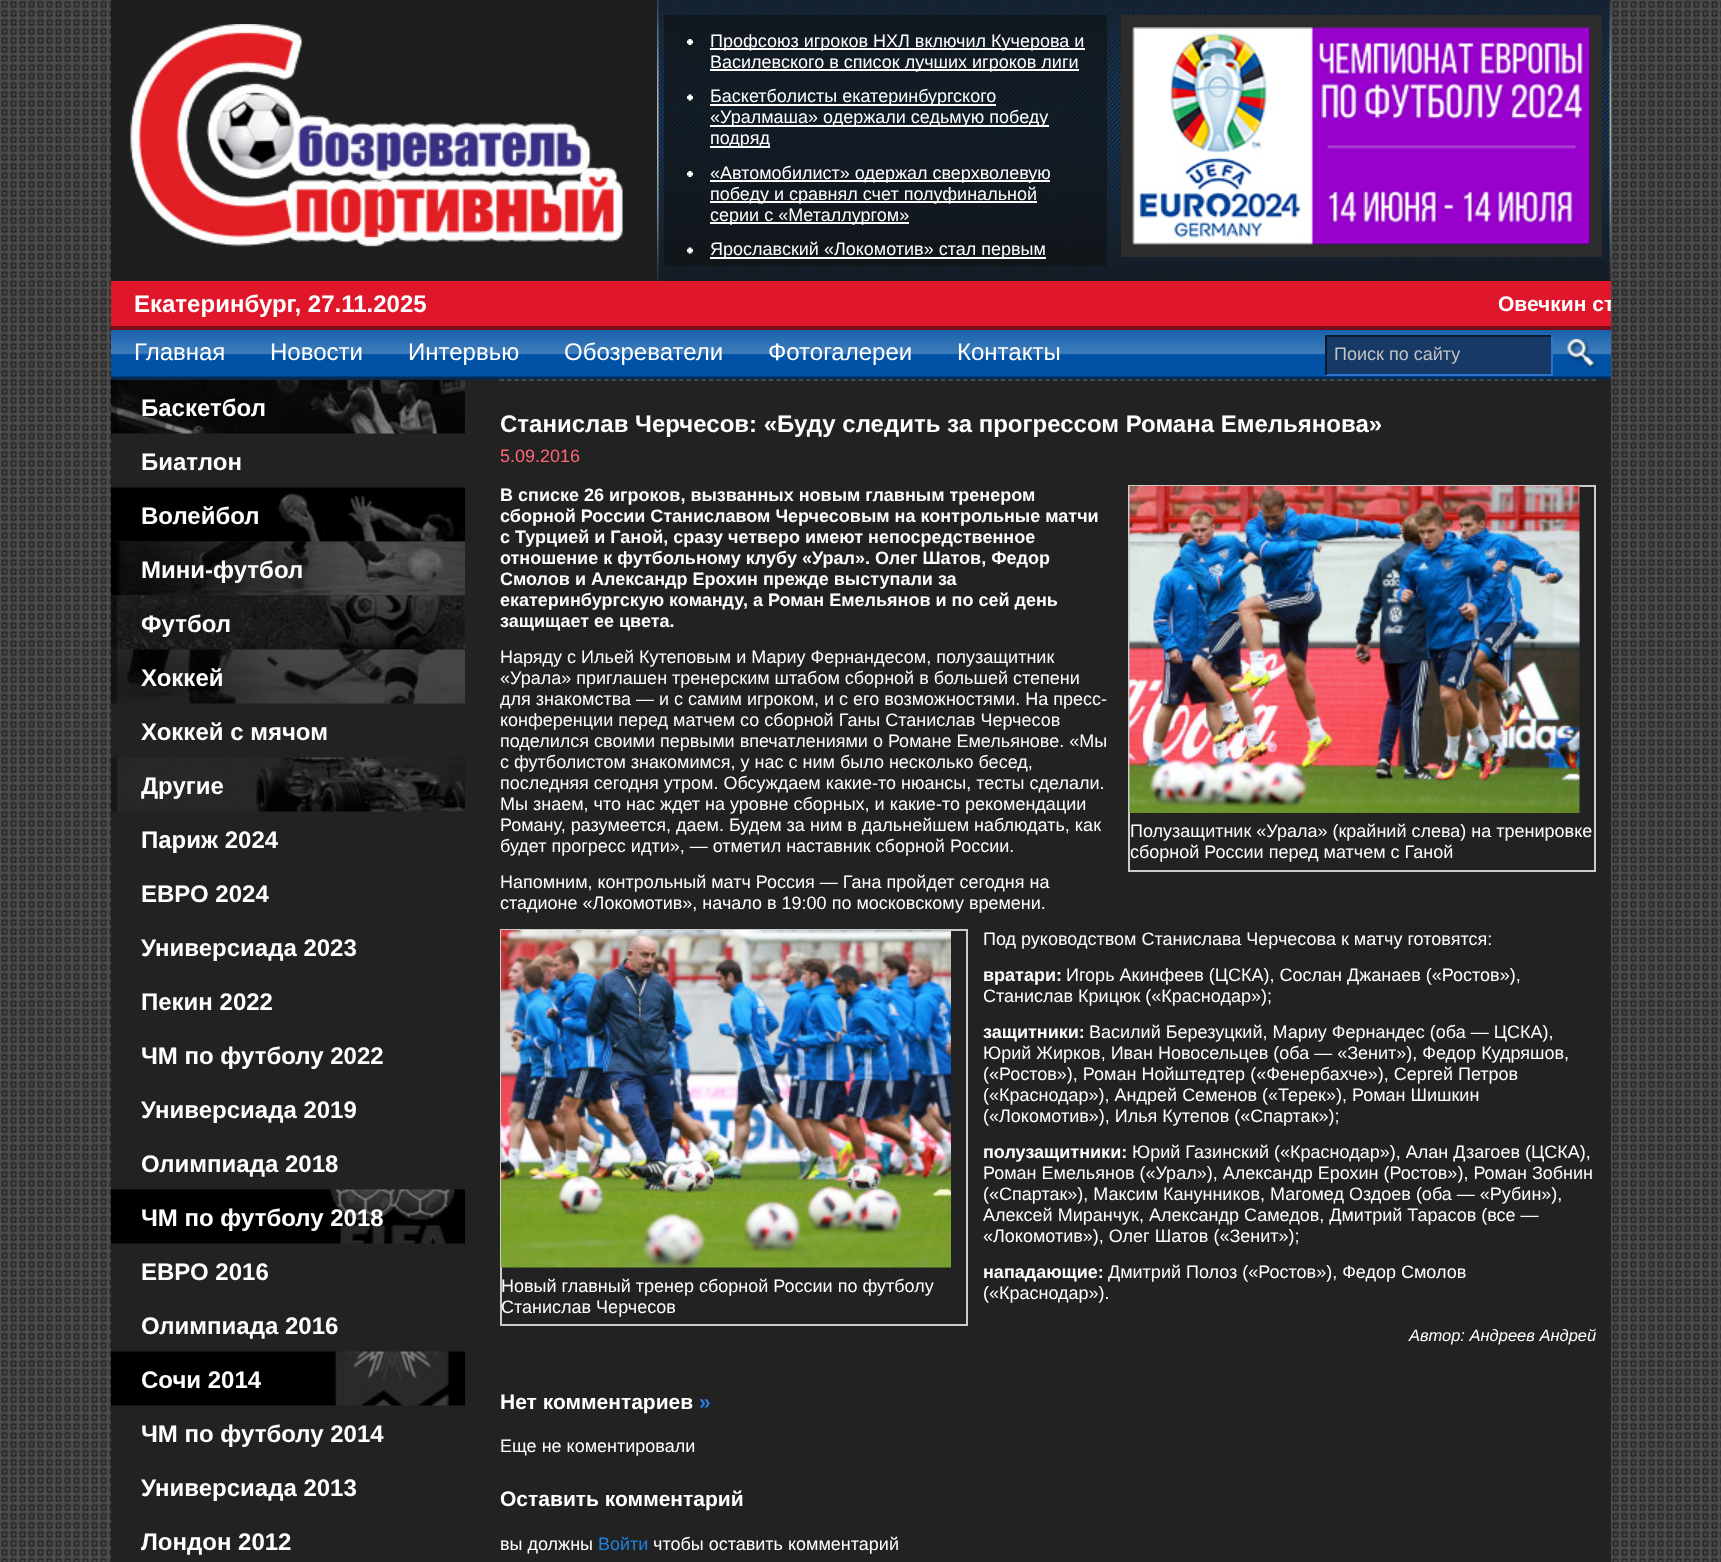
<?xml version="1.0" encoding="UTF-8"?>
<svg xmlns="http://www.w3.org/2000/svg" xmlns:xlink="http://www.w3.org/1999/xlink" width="1721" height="1562">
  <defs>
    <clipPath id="clip1"><rect x="500" y="281" width="1111" height="45" /></clipPath>
    <clipPath id="clip2"><rect x="500" y="381" width="1096" height="986" /></clipPath>
  </defs>
  <rect width="100%" height="100%" fill="#ffffff" />
  <image x="0" y="0" width="1721" height="1562" xlink:href="image1.png" />
  <rect x="111" y="380" width="1500" height="1182" fill="#222222" />
  <rect x="111" width="1500" height="380" fill="#1e1e1e" />
  <image x="130" y="24" width="493" height="223" xlink:href="image2.png" />
  <image x="657" y="0" width="956" height="281" xlink:href="image3.png" />
  <rect x="664" y="15" width="443" height="251" fill="#101010" fill-opacity="0.58" />
  <image x="687" y="39" width="6" height="6" xlink:href="image4.png" />
  <rect x="710" y="48" width="375" height="2" fill="#ffffff" />
  <rect x="710" y="69" width="369" height="2" fill="#ffffff" />
  <image x="687" y="94" width="6" height="7" xlink:href="image5.png" />
  <rect x="710" y="104" width="286" height="2" fill="#ffffff" />
  <rect x="710" y="125" width="339" height="2" fill="#ffffff" />
  <rect x="710" y="146" width="60" height="2" fill="#ffffff" />
  <image x="687" y="171" width="6" height="6" xlink:href="image4.png" />
  <rect x="710" y="180" width="340" height="2" fill="#ffffff" />
  <rect x="710" y="201" width="327" height="2" fill="#ffffff" />
  <rect x="710" y="222" width="199" height="2" fill="#ffffff" />
  <image x="687" y="247" width="6" height="7" xlink:href="image6.png" />
  <rect x="710" y="257" width="336" height="2" fill="#ffffff" />
  <rect x="1127" y="21" width="469" height="230" fill="none" stroke="#2c2c2c" stroke-width="12" />
  <image x="1132" y="27" width="458" height="218" xlink:href="image7.png" />
  <rect x="111" y="281" width="1500" height="45" fill="#e0162b" />
  <rect x="111" y="326" width="1500" height="4" fill="#7b0c18" />
  <image x="111" y="330" width="1500" height="50" xlink:href="image8.png" />
  <rect x="1327" y="337" width="224" height="37" fill="#173966" />
  <rect x="1325" y="335" width="228" height="2" fill="#0b1a2e" />
  <rect x="1551" y="335" width="2" height="40" fill="#2d72cd" />
  <rect x="1325" y="374" width="228" height="2" fill="#2d72cd" />
  <rect x="1325" y="335" width="2" height="40" fill="#0b1a2e" />
  <image x="1566" y="339" width="30" height="29" xlink:href="image9.png" />
  <image x="111" y="380" width="354" height="54" xlink:href="image10.png" />
  <image x="111" y="487" width="354" height="55" xlink:href="image11.png" />
  <image x="111" y="541" width="354" height="55" xlink:href="image12.png" />
  <image x="111" y="595" width="354" height="55" xlink:href="image13.png" />
  <image x="111" y="649" width="354" height="55" xlink:href="image14.png" />
  <image x="111" y="757" width="354" height="55" xlink:href="image15.png" />
  <image x="111" y="1189" width="354" height="55" xlink:href="image16.png" />
  <image x="111" y="1351" width="354" height="55" xlink:href="image17.png" />
  <path d="M 499.5 380 h 1096.5" fill="none" stroke="#555555" stroke-width="1.5" stroke-dasharray="4.5 2.98" />
  <rect x="1129" y="486" width="466" height="385" fill="none" stroke="#cccccc" stroke-width="2" />
  <image x="1129" y="486" width="451" height="327" xlink:href="image18.png" />
  <rect x="501" y="930" width="466" height="395" fill="none" stroke="#cccccc" stroke-width="2" />
  <image x="501" y="930" width="450" height="338" xlink:href="image19.png" />
  <text x="710" y="47" style="font-family: Liberation Sans; font-size: 18px; fill: #ffffff">Профсоюз игроков НХЛ включил Кучерова и</text>
  <text x="710" y="68" style="font-family: Liberation Sans; font-size: 18px; fill: #ffffff">Василевского в список лучших игроков лиги</text>
  <text x="710" y="102" style="font-family: Liberation Sans; font-size: 18px; fill: #ffffff">Баскетболисты екатеринбургского</text>
  <text x="710" y="123" style="font-family: Liberation Sans; font-size: 18px; fill: #ffffff">«Уралмаша» одержали седьмую победу</text>
  <text x="710" y="144" style="font-family: Liberation Sans; font-size: 18px; fill: #ffffff">подряд</text>
  <text x="710" y="179" style="font-family: Liberation Sans; font-size: 18px; fill: #ffffff">«Автомобилист» одержал сверхволевую</text>
  <text x="710" y="200" style="font-family: Liberation Sans; font-size: 18px; fill: #ffffff">победу и сравнял счет полуфинальной</text>
  <text x="710" y="221" style="font-family: Liberation Sans; font-size: 18px; fill: #ffffff">серии с «Металлургом»</text>
  <text x="710" y="255" style="font-family: Liberation Sans; font-size: 18px; fill: #ffffff">Ярославский «Локомотив» стал первым</text>
  <text x="134" y="312" style="font-family: Liberation Sans; font-size: 24px; font-weight: bold; fill: #ffffff">Екатеринбург, 27.11.2025</text>
  <g clip-path="url(#clip1)">
    <text x="1498" y="311" style="font-family: Liberation Sans; font-size: 21px; font-weight: bold; fill: #ffffff">Овечкин ст</text>
  </g>
  <text x="134" y="360" style="font-family: Liberation Sans; font-size: 24px; fill: #ffffff">Главная</text>
  <text x="270" y="360" style="font-family: Liberation Sans; font-size: 24px; fill: #ffffff">Новости</text>
  <text x="408" y="360" style="font-family: Liberation Sans; font-size: 24px; fill: #ffffff">Интервью</text>
  <text x="564" y="360" style="font-family: Liberation Sans; font-size: 24px; fill: #ffffff">Обозреватели</text>
  <text x="768" y="360" style="font-family: Liberation Sans; font-size: 24px; fill: #ffffff">Фотогалереи</text>
  <text x="957" y="360" style="font-family: Liberation Sans; font-size: 24px; fill: #ffffff">Контакты</text>
  <text x="1334" y="360" style="font-family: Liberation Sans; font-size: 18px; fill: #c2c3c3">Поиск по сайту</text>
  <text x="141" y="416" style="font-family: Liberation Sans; font-size: 24px; font-weight: bold; fill: #ffffff">Баскетбол</text>
  <text x="141" y="470" style="font-family: Liberation Sans; font-size: 24px; font-weight: bold; fill: #ffffff">Биатлон</text>
  <text x="141" y="524" style="font-family: Liberation Sans; font-size: 24px; font-weight: bold; fill: #ffffff">Волейбол</text>
  <text x="141" y="578" style="font-family: Liberation Sans; font-size: 24px; font-weight: bold; fill: #ffffff">Мини-футбол</text>
  <text x="141" y="632" style="font-family: Liberation Sans; font-size: 24px; font-weight: bold; fill: #ffffff">Футбол</text>
  <text x="141" y="686" style="font-family: Liberation Sans; font-size: 24px; font-weight: bold; fill: #ffffff">Хоккей</text>
  <text x="141" y="740" style="font-family: Liberation Sans; font-size: 24px; font-weight: bold; fill: #ffffff">Хоккей с мячом</text>
  <text x="141" y="794" style="font-family: Liberation Sans; font-size: 24px; font-weight: bold; fill: #ffffff">Другие</text>
  <text x="141" y="848" style="font-family: Liberation Sans; font-size: 24px; font-weight: bold; fill: #ffffff">Париж 2024</text>
  <text x="141" y="902" style="font-family: Liberation Sans; font-size: 24px; font-weight: bold; fill: #ffffff">ЕВРО 2024</text>
  <text x="141" y="956" style="font-family: Liberation Sans; font-size: 24px; font-weight: bold; fill: #ffffff">Универсиада 2023</text>
  <text x="141" y="1010" style="font-family: Liberation Sans; font-size: 24px; font-weight: bold; fill: #ffffff">Пекин 2022</text>
  <text x="141" y="1064" style="font-family: Liberation Sans; font-size: 24px; font-weight: bold; fill: #ffffff">ЧМ по футболу 2022</text>
  <text x="141" y="1118" style="font-family: Liberation Sans; font-size: 24px; font-weight: bold; fill: #ffffff">Универсиада 2019</text>
  <text x="141" y="1172" style="font-family: Liberation Sans; font-size: 24px; font-weight: bold; fill: #ffffff">Олимпиада 2018</text>
  <text x="141" y="1226" style="font-family: Liberation Sans; font-size: 24px; font-weight: bold; fill: #ffffff">ЧМ по футболу 2018</text>
  <text x="141" y="1280" style="font-family: Liberation Sans; font-size: 24px; font-weight: bold; fill: #ffffff">ЕВРО 2016</text>
  <text x="141" y="1334" style="font-family: Liberation Sans; font-size: 24px; font-weight: bold; fill: #ffffff">Олимпиада 2016</text>
  <text x="141" y="1388" style="font-family: Liberation Sans; font-size: 24px; font-weight: bold; fill: #ffffff">Сочи 2014</text>
  <text x="141" y="1442" style="font-family: Liberation Sans; font-size: 24px; font-weight: bold; fill: #ffffff">ЧМ по футболу 2014</text>
  <text x="141" y="1496" style="font-family: Liberation Sans; font-size: 24px; font-weight: bold; fill: #ffffff">Универсиада 2013</text>
  <text x="141" y="1550" style="font-family: Liberation Sans; font-size: 24px; font-weight: bold; fill: #ffffff">Лондон 2012</text>
  <text x="500" y="432" style="font-family: Liberation Sans; font-size: 24px; font-weight: bold; fill: #ffffff">Станислав Черчесов: «Буду следить за прогрессом Романа Емельянова»</text>
  <text x="500" y="462" style="font-family: Liberation Sans; font-size: 18px; fill: #ff6676">5.09.2016</text>
  <text x="500" y="501" style="font-family: Liberation Sans; font-size: 18px; font-weight: bold; fill: #ffffff">В списке 26 игроков, вызванных новым главным тренером</text>
  <text x="500" y="522" style="font-family: Liberation Sans; font-size: 18px; font-weight: bold; fill: #ffffff">сборной России Станиславом Черчесовым на контрольные матчи</text>
  <text x="500" y="543" style="font-family: Liberation Sans; font-size: 18px; font-weight: bold; fill: #ffffff">с Турцией и Ганой, сразу четверо имеют непосредственное</text>
  <text x="500" y="564" style="font-family: Liberation Sans; font-size: 18px; font-weight: bold; fill: #ffffff">отношение к футбольному клубу «Урал». Олег Шатов, Федор</text>
  <text x="500" y="585" style="font-family: Liberation Sans; font-size: 18px; font-weight: bold; fill: #ffffff">Смолов и Александр Ерохин прежде выступали за</text>
  <text x="500" y="606" style="font-family: Liberation Sans; font-size: 18px; font-weight: bold; fill: #ffffff">екатеринбургскую команду, а Роман Емельянов и по сей день</text>
  <text x="500" y="627" style="font-family: Liberation Sans; font-size: 18px; font-weight: bold; fill: #ffffff">защищает ее цвета.</text>
  <text x="500" y="663" style="font-family: Liberation Sans; font-size: 18px; fill: #ffffff">Наряду с Ильей Кутеповым и Мариу Фернандесом, полузащитник</text>
  <text x="500" y="684" style="font-family: Liberation Sans; font-size: 18px; fill: #ffffff">«Урала» приглашен тренерским штабом сборной в большей степени</text>
  <g clip-path="url(#clip2)">
    <text x="500" y="705" style="font-family: Liberation Sans; font-size: 18px; fill: #ffffff">для знакомства — и с самим игроком, и с его возможностями. На пресс-</text>
  </g>
  <text x="500" y="726" style="font-family: Liberation Sans; font-size: 18px; fill: #ffffff">конференции перед матчем со сборной Ганы Станислав Черчесов</text>
  <text x="500" y="747" style="font-family: Liberation Sans; font-size: 18px; fill: #ffffff">поделился своими первыми впечатлениями о Романе Емельянове. «Мы</text>
  <text x="500" y="768" style="font-family: Liberation Sans; font-size: 18px; fill: #ffffff">с футболистом знакомимся, у нас с ним было несколько бесед,</text>
  <text x="500" y="789" style="font-family: Liberation Sans; font-size: 18px; fill: #ffffff">последняя сегодня утром. Обсуждаем какие-то нюансы, тесты сделали.</text>
  <text x="500" y="810" style="font-family: Liberation Sans; font-size: 18px; fill: #ffffff">Мы знаем, что нас ждет на уровне сборных, и какие-то рекомендации</text>
  <text x="500" y="831" style="font-family: Liberation Sans; font-size: 18px; fill: #ffffff">Роману, разумеется, даем. Будем за ним в дальнейшем наблюдать, как</text>
  <text x="500" y="852" style="font-family: Liberation Sans; font-size: 18px; fill: #ffffff">будет прогресс идти», — отметил наставник сборной России.</text>
  <text x="1130" y="837" style="font-family: Liberation Sans; font-size: 18px; fill: #ffffff">Полузащитник «Урала» (крайний слева) на тренировке</text>
  <text x="1130" y="858" style="font-family: Liberation Sans; font-size: 18px; fill: #ffffff">сборной России перед матчем с Ганой</text>
  <text x="500" y="888" style="font-family: Liberation Sans; font-size: 18px; fill: #ffffff">Напомним, контрольный матч Россия — Гана пройдет сегодня на</text>
  <text x="500" y="909" style="font-family: Liberation Sans; font-size: 18px; fill: #ffffff">стадионе «Локомотив», начало в 19:00 по московскому времени.</text>
  <text x="983" y="945" style="font-family: Liberation Sans; font-size: 18px; fill: #ffffff">Под руководством Станислава Черчесова к матчу готовятся:</text>
  <text x="983" y="981" style="font-family: Liberation Sans; font-size: 18px; font-weight: bold; fill: #ffffff">вратари:</text>
  <text x="1066" y="981" style="font-family: Liberation Sans; font-size: 18px; fill: #ffffff">Игорь Акинфеев (ЦСКА), Сослан Джанаев («Ростов»),</text>
  <text x="983" y="1002" style="font-family: Liberation Sans; font-size: 18px; fill: #ffffff">Станислав Крицюк («Краснодар»);</text>
  <text x="983" y="1038" style="font-family: Liberation Sans; font-size: 18px; font-weight: bold; fill: #ffffff">защитники:</text>
  <text x="1089" y="1038" style="font-family: Liberation Sans; font-size: 18px; fill: #ffffff">Василий Березуцкий, Мариу Фернандес (оба — ЦСКА),</text>
  <text x="983" y="1059" style="font-family: Liberation Sans; font-size: 18px; fill: #ffffff">Юрий Жирков, Иван Новосельцев (оба — «Зенит»), Федор Кудряшов,</text>
  <text x="983" y="1080" style="font-family: Liberation Sans; font-size: 18px; fill: #ffffff">(«Ростов»), Роман Нойштедтер («Фенербахче»), Сергей Петров</text>
  <text x="983" y="1101" style="font-family: Liberation Sans; font-size: 18px; fill: #ffffff">(«Краснодар»), Андрей Семенов («Терек»), Роман Шишкин</text>
  <text x="983" y="1122" style="font-family: Liberation Sans; font-size: 18px; fill: #ffffff">(«Локомотив»), Илья Кутепов («Спартак»);</text>
  <text x="983" y="1158" style="font-family: Liberation Sans; font-size: 18px; font-weight: bold; fill: #ffffff">полузащитники:</text>
  <text x="1132" y="1158" style="font-family: Liberation Sans; font-size: 18px; fill: #ffffff">Юрий Газинский («Краснодар»), Алан Дзагоев (ЦСКА),</text>
  <text x="983" y="1179" style="font-family: Liberation Sans; font-size: 18px; fill: #ffffff">Роман Емельянов («Урал»), Александр Ерохин (Ростов»), Роман Зобнин</text>
  <text x="983" y="1200" style="font-family: Liberation Sans; font-size: 18px; fill: #ffffff">(«Спартак»), Максим Канунников, Магомед Оздоев (оба — «Рубин»),</text>
  <text x="983" y="1221" style="font-family: Liberation Sans; font-size: 18px; fill: #ffffff">Алексей Миранчук, Александр Самедов, Дмитрий Тарасов (все —</text>
  <text x="983" y="1242" style="font-family: Liberation Sans; font-size: 18px; fill: #ffffff">«Локомотив»), Олег Шатов («Зенит»);</text>
  <text x="501" y="1292" style="font-family: Liberation Sans; font-size: 18px; fill: #ffffff">Новый главный тренер сборной России по футболу</text>
  <text x="501" y="1313" style="font-family: Liberation Sans; font-size: 18px; fill: #ffffff">Станислав Черчесов</text>
  <text x="983" y="1278" style="font-family: Liberation Sans; font-size: 18px; font-weight: bold; fill: #ffffff">нападающие:</text>
  <text x="1108" y="1278" style="font-family: Liberation Sans; font-size: 18px; fill: #ffffff">Дмитрий Полоз («Ростов»), Федор Смолов</text>
  <text x="983" y="1299" style="font-family: Liberation Sans; font-size: 18px; fill: #ffffff">(«Краснодар»).</text>
  <text x="1409" y="1341" style="font-family: Liberation Sans; font-size: 16.5px; font-style: italic; fill: #ffffff">Автор: Андреев Андрей</text>
  <text x="500" y="1409" style="font-family: Liberation Sans; font-size: 21px; font-weight: bold; fill: #ffffff">Нет комментариев</text>
  <text x="699" y="1409" style="font-family: Liberation Sans; font-size: 21px; font-weight: bold; fill: #2280df">»</text>
  <text x="500" y="1452" style="font-family: Liberation Sans; font-size: 18px; fill: #ffffff">Еще не коментировали</text>
  <text x="500" y="1506" style="font-family: Liberation Sans; font-size: 21px; font-weight: bold; fill: #ffffff">Оставить комментарий</text>
  <text x="500" y="1550" style="font-family: Liberation Sans; font-size: 18px; fill: #ffffff">вы должны</text>
  <text x="598" y="1550" style="font-family: Liberation Sans; font-size: 18px; fill: #2280df">Войти</text>
  <text x="653" y="1550" style="font-family: Liberation Sans; font-size: 18px; fill: #ffffff">чтобы оставить комментарий</text>
</svg>
